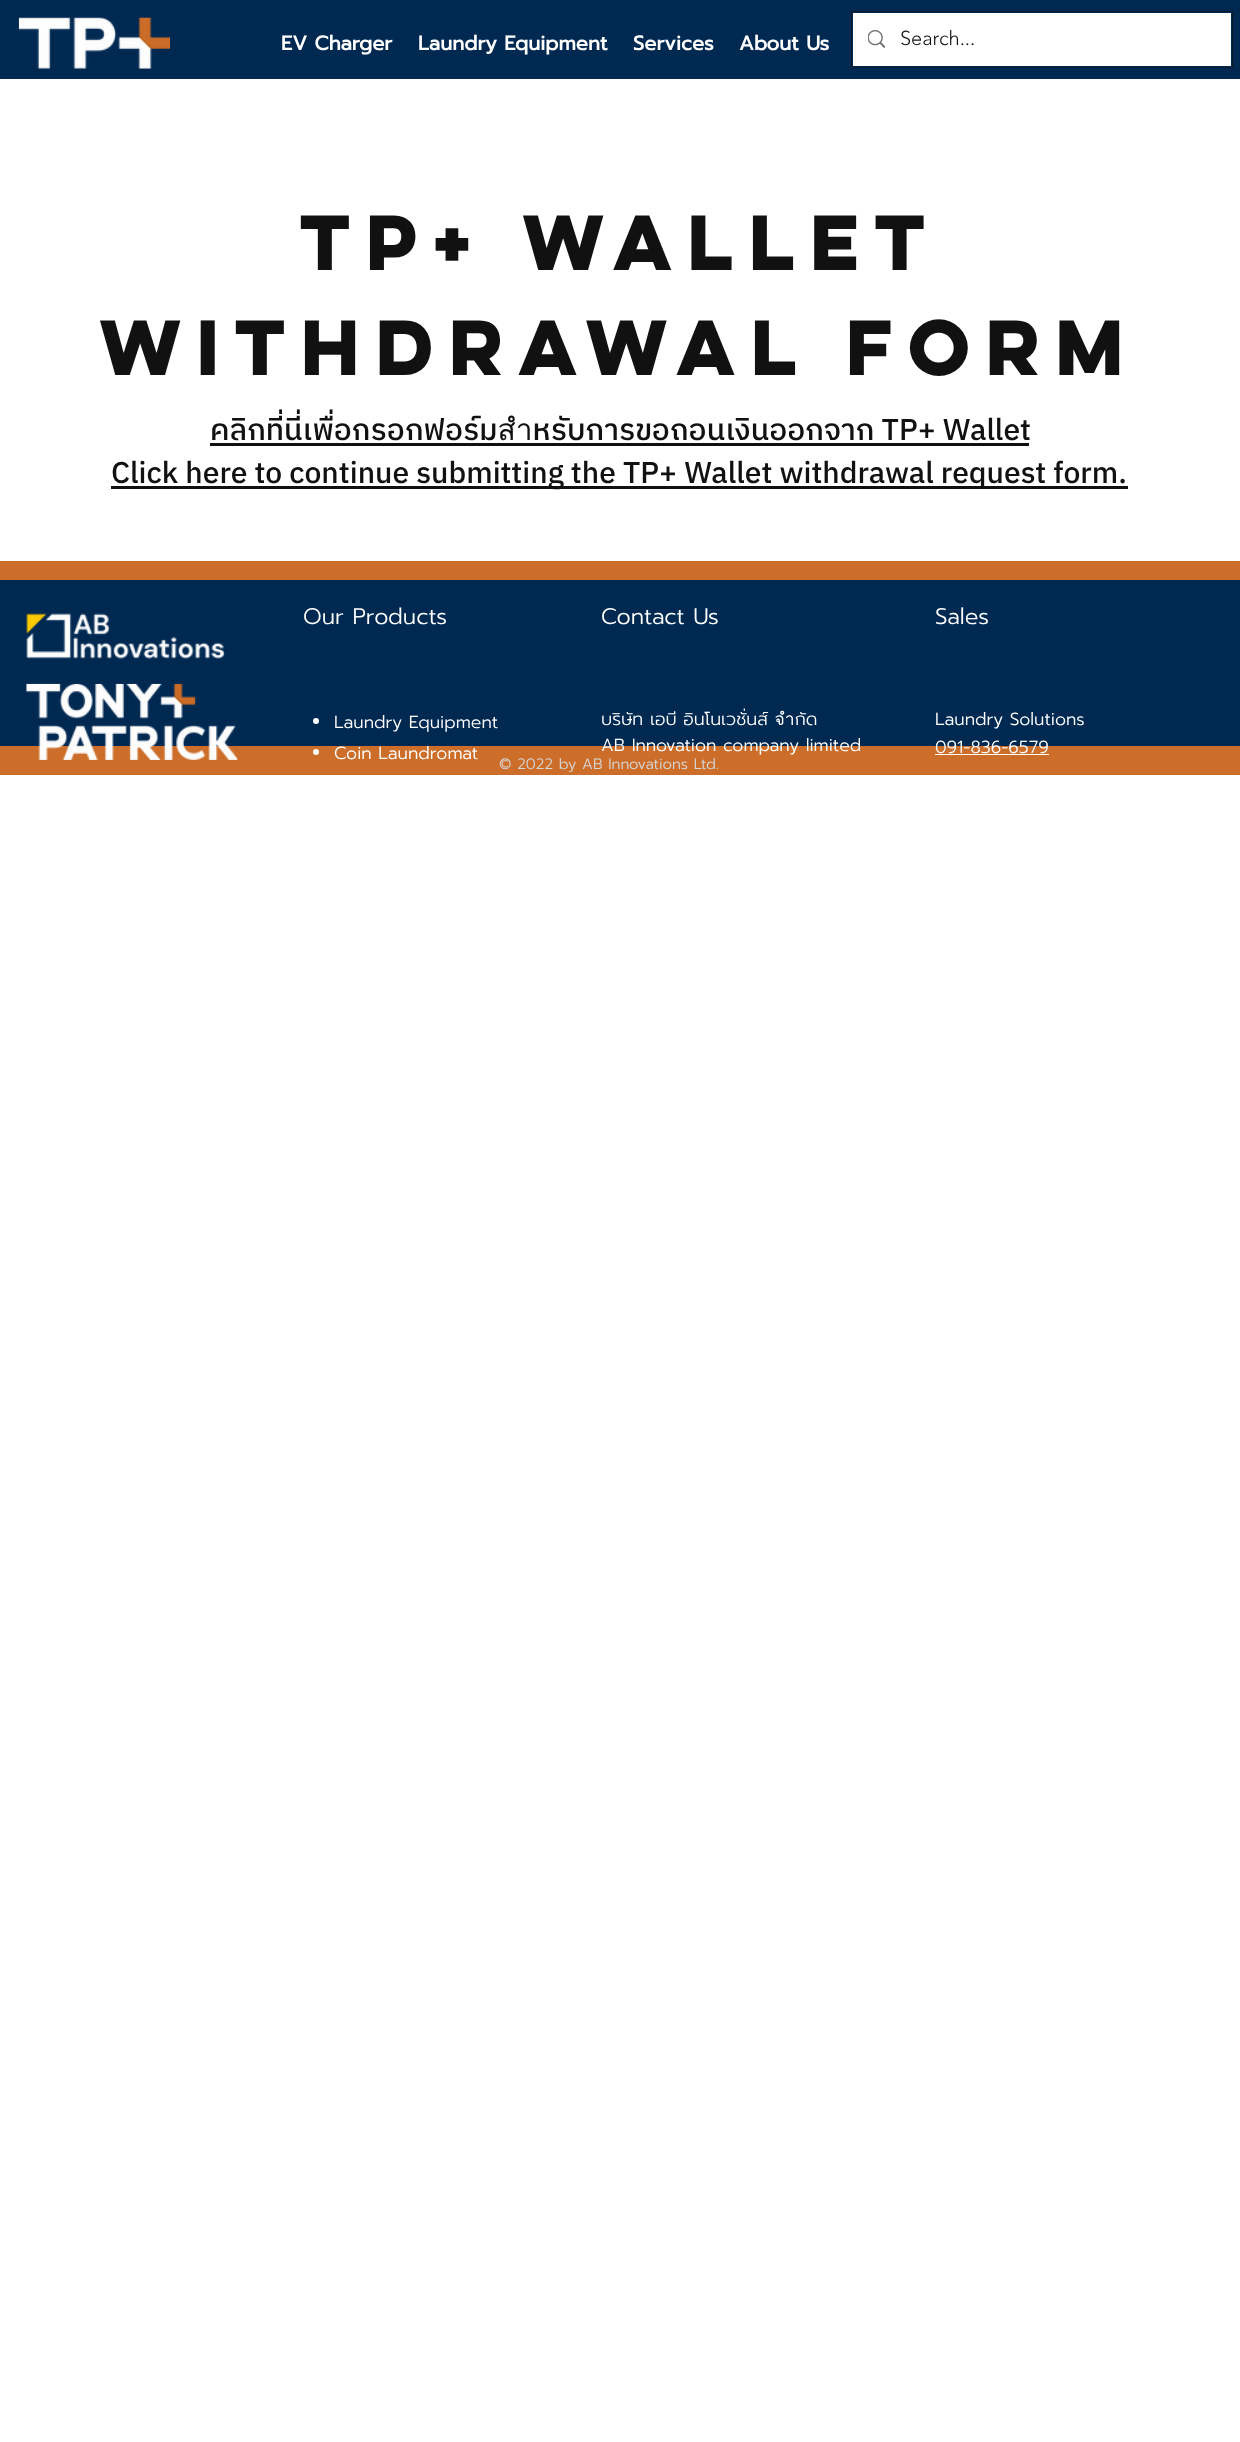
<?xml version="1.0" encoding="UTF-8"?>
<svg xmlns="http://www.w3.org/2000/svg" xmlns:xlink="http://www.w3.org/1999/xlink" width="1240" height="2442">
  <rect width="100%" height="100%" fill="#ffffff" />
  <rect width="1240" height="79" fill="#002952" />
  <image x="18" y="17" width="152" height="52" xlink:href="image1.png" />
  <rect x="851.5" y="11.5" width="381" height="56" fill="none" stroke="#0a1b2b" />
  <rect x="853" y="13" width="378" height="53" fill="#ffffff" />
  <image x="868" y="30" width="17" height="18" xlink:href="image2.png" />
  <rect x="210" y="443" width="819" height="3" fill="#111111" />
  <rect x="111" y="486" width="1017" height="3" fill="#111111" />
  <rect y="561" width="1240" height="214" fill="#cc6e29" />
  <rect y="580" width="1240" height="166" fill="#002952" />
  <image x="26" y="683" width="212" height="77" xlink:href="image3.png" />
  <image x="26" y="613" width="199" height="46" xlink:href="image4.png" />
  <circle cx="316" cy="721" r="3" fill="#ffffff" />
  <circle cx="316" cy="752" r="3" fill="#ffffff" />
  <rect x="935" y="754" width="114" height="1" fill="#ffffff" />
  <text x="281" y="50" style="font-family: Prompt; font-size: 20px; font-weight: bold; fill: #ffffff">EV Charger</text>
  <text x="418" y="50" style="font-family: Prompt; font-size: 20px; font-weight: bold; fill: #ffffff">Laundry Equipment</text>
  <text x="633" y="50" style="font-family: Prompt; font-size: 20px; font-weight: bold; fill: #ffffff">Services</text>
  <text x="739" y="50" style="font-family: Prompt; font-size: 20px; font-weight: bold; fill: #ffffff">About Us</text>
  <text x="900" y="45" style="font-family: 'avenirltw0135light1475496'; font-size: 20px; font-weight: 300; fill: #111111">Search...</text>
  <text x="300" y="270" style="font-family: 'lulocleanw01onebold'; font-size: 70px; font-weight: bold; fill: #111111">TP+ Wallet</text>
  <text x="100" y="375" style="font-family: 'lulocleanw01onebold'; font-size: 70px; font-weight: bold; fill: #111111">withdrawal form</text>
  <text x="210" y="440" style="font-family: IBM Plex Sans Thai; font-size: 30px; font-weight: 500; fill: #111111">คลิกที่นี่เพื่อกรอกฟอร์มสำหรับการขอถอนเงินออกจาก TP+ Wallet</text>
  <text x="111" y="483" style="font-family: IBM Plex Sans Thai; font-size: 30px; font-weight: 500; fill: #111111">Click here to continue submitting the TP+ Wallet withdrawal request form.</text>
  <text x="303" y="624" style="font-family: Prompt; font-size: 22.5px; font-weight: 300; fill: #ffffff">Our Products</text>
  <text x="601" y="624" style="font-family: Prompt; font-size: 22.5px; font-weight: 300; fill: #ffffff">Contact Us</text>
  <text x="935" y="624" style="font-family: Prompt; font-size: 22.5px; font-weight: 300; fill: #ffffff">Sales</text>
  <text x="334" y="728" style="font-family: Prompt; font-size: 17.5px; font-weight: 300; fill: #ffffff">Laundry Equipment</text>
  <text x="334" y="759" style="font-family: Prompt; font-size: 17.5px; font-weight: 300; fill: #ffffff">Coin Laundromat</text>
  <text x="601" y="725" style="font-family: Prompt; font-size: 17.5px; font-weight: 300; fill: #ffffff">บริษัท เอบี อินโนเวชั่นส์ จำกัด</text>
  <text x="601" y="751" style="font-family: Prompt; font-size: 17.5px; font-weight: 300; fill: #ffffff">AB Innovation company limited</text>
  <text x="935" y="725" style="font-family: 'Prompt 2'; font-size: 17.5px; font-weight: 300; fill: #ffffff">Laundry Solutions</text>
  <text x="935" y="753" style="font-family: 'Prompt 2'; font-size: 17.5px; font-weight: 300; fill: #ffffff">091-836-6579</text>
  <text x="499" y="769" style="font-family: Prompt; font-size: 15px; font-weight: 300; fill: #d6d6d6">© 2022 by AB Innovations Ltd.</text>
</svg>
